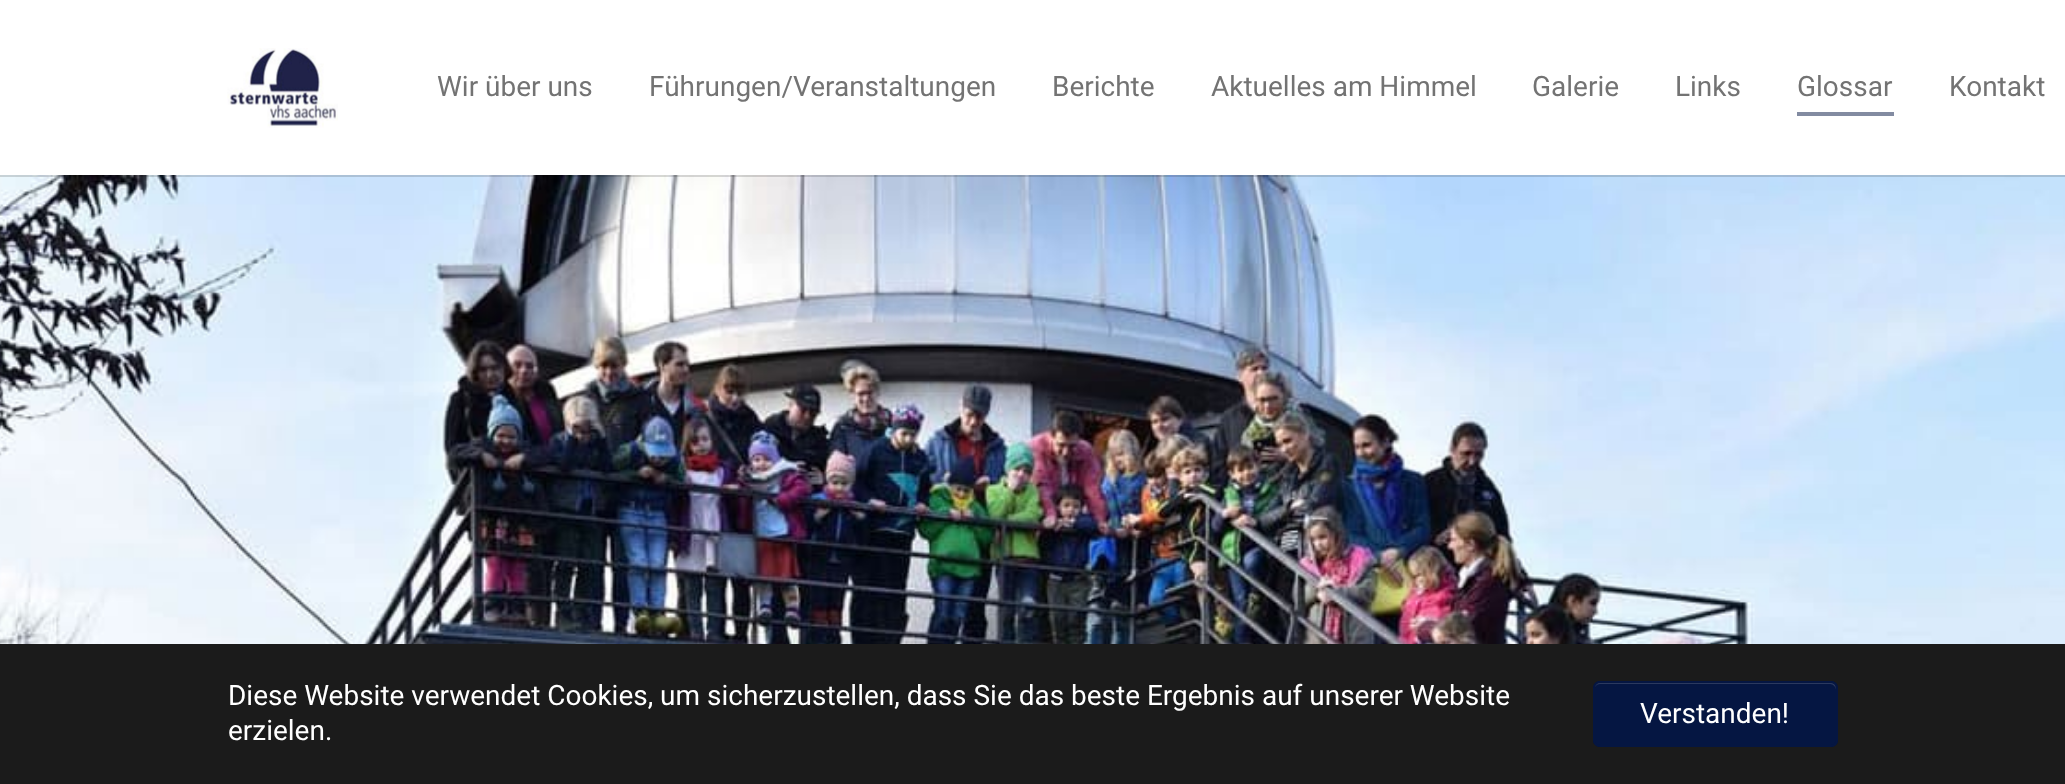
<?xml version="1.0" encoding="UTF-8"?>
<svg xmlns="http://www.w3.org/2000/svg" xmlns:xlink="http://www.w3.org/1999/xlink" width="2065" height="784">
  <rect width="100%" height="100%" fill="#ffffff" />
  <image x="0" y="175" width="2065" height="469" xlink:href="image2.png" />
  <rect y="175" width="2065" height="2" fill="#000000" fill-opacity="0.15" />
  <image x="227" y="48" width="111" height="80" xlink:href="image1.png" />
  <rect x="1797" y="112" width="97" height="4" fill="#828ba1" />
  <rect y="644" width="2065" height="140" fill="#1b1b1b" />
  <rect x="1593" y="681" width="245" height="66" rx="7" fill="#051642" />
  <path d="M 1600 684 h 230 c 3 0 6 3 6 6 c 0 -3 0 -6 -4 -7 h -234 c -4 1 -4 4 -4 7 c 0 -3 3 -6 6 -6 z" fill="#2b395e" />
  <rect x="1594" y="682" width="243" height="64" rx="6" fill="none" stroke="#051642" stroke-width="2" />
  <text x="437" y="96" style="font-family: Roboto; font-size: 28px; fill: #737373">Wir über uns</text>
  <text x="649" y="96" style="font-family: Roboto; font-size: 28px; fill: #737373">Führungen/Veranstaltungen</text>
  <text x="1052" y="96" style="font-family: Roboto; font-size: 28px; fill: #737373">Berichte</text>
  <text x="1211" y="96" style="font-family: Roboto; font-size: 28px; fill: #737373">Aktuelles am Himmel</text>
  <text x="1532" y="96" style="font-family: Roboto; font-size: 28px; fill: #737373">Galerie</text>
  <text x="1675" y="96" style="font-family: Roboto; font-size: 28px; fill: #737373">Links</text>
  <text x="1797" y="96" style="font-family: Roboto; font-size: 28px; fill: #737373">Glossar</text>
  <text x="1949" y="96" style="font-family: Roboto; font-size: 28px; fill: #737373">Kontakt</text>
  <text x="228" y="705" style="font-family: Roboto; font-size: 28px; fill: #ffffff">Diese Website verwendet Cookies, um sicherzustellen, dass Sie das beste Ergebnis auf unserer Website</text>
  <text x="228" y="740" style="font-family: Roboto; font-size: 28px; fill: #ffffff">erzielen.</text>
  <text x="1640" y="723" style="font-family: Roboto; font-size: 28px; fill: #ffffff">Verstanden!</text>
</svg>
